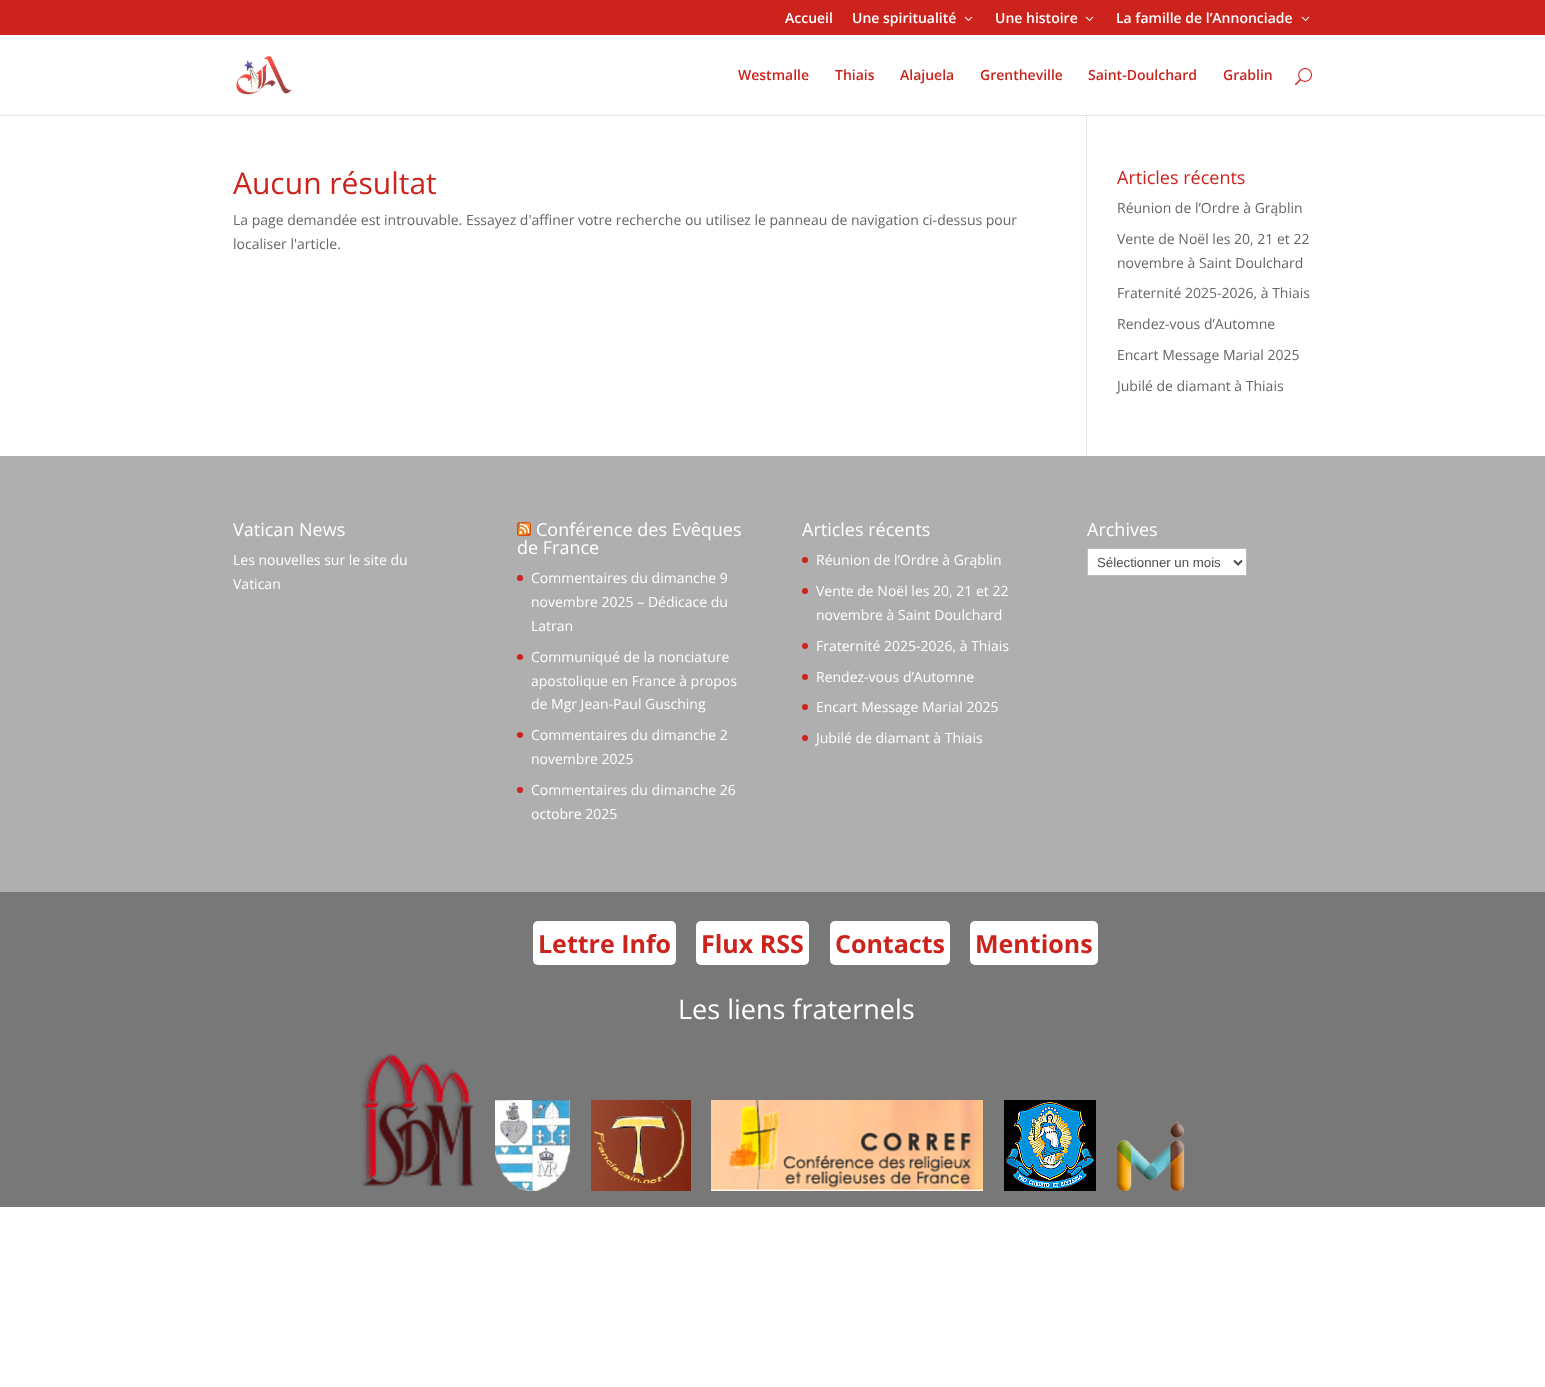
<?xml version="1.0" encoding="UTF-8"?>
<svg xmlns="http://www.w3.org/2000/svg" xmlns:xlink="http://www.w3.org/1999/xlink" width="1545" height="1387">
  <rect width="100%" height="100%" fill="#ffffff" />
  <rect y="115" width="1545" height="1" fill="#e6e6e6" />
  <rect width="1545" height="35" fill="#cc231c" />
  <image x="964" y="16" width="9" height="5" xlink:href="image1.png" />
  <image x="1085" y="16" width="9" height="5" xlink:href="image1.png" />
  <image x="1301" y="16" width="9" height="5" xlink:href="image1.png" />
  <rect x="1086" y="110" width="1" height="346" fill="#e2e2e2" />
  <rect x="1086" y="110" width="1" height="5" fill="#ffffff" />
  <image x="236" y="55" width="56" height="42" xlink:href="image2.png" />
  <image x="1295" y="68" width="17" height="18" xlink:href="image3.png" />
  <rect x="1086" y="115" width="1" height="1" fill="#cbcbcb" />
  <rect y="456" width="1545" height="436" fill="#afafaf" />
  <image x="517" y="522" width="14" height="14" xlink:href="image4.png" />
  <circle cx="520" cy="578" r="3" fill="#cc231c" />
  <circle cx="520" cy="657" r="3" fill="#cc231c" />
  <circle cx="520" cy="735" r="3" fill="#cc231c" />
  <circle cx="520" cy="790" r="3" fill="#cc231c" />
  <circle cx="805" cy="560" r="3" fill="#cc231c" />
  <circle cx="805" cy="591" r="3" fill="#cc231c" />
  <circle cx="805" cy="646" r="3" fill="#cc231c" />
  <circle cx="805" cy="677" r="3" fill="#cc231c" />
  <circle cx="805" cy="707" r="3" fill="#cc231c" />
  <circle cx="805" cy="738" r="3" fill="#cc231c" />
  <rect x="1087.5" y="548.5" width="159" height="27" fill="#ffffff" stroke="#bbbbbb" />
  <path d="M 1234 560.5 l 4 4 l 4 -4" fill="none" stroke="#4e4e4e" stroke-width="2" />
  <rect y="892" width="1545" height="315" fill="#787878" />
  <rect x="533" y="921" width="143" height="44" rx="5" fill="#ffffff" />
  <rect x="696" y="921" width="113" height="44" rx="5" fill="#ffffff" />
  <rect x="830" y="921" width="120" height="44" rx="5" fill="#ffffff" />
  <rect x="970" y="921" width="128" height="44" rx="5" fill="#ffffff" />
  <image x="361" y="1053" width="113" height="134" xlink:href="image5.png" />
  <image x="495" y="1100" width="75" height="91" xlink:href="image6.png" />
  <image x="591" y="1100" width="100" height="91" xlink:href="image7.png" />
  <image x="711" y="1100" width="272" height="91" xlink:href="image8.png" />
  <image x="1004" y="1100" width="92" height="91" xlink:href="image9.png" />
  <image x="1117" y="1121" width="68" height="70" xlink:href="image10.png" />
  <text x="785" y="23" style="font-family: Open Sans; font-size: 14px; font-weight: 600; fill: #ffffff">Accueil</text>
  <text x="852" y="23" style="font-family: Open Sans; font-size: 14px; font-weight: 600; fill: #ffffff">Une spiritualité</text>
  <text x="995" y="23" style="font-family: Open Sans; font-size: 14px; font-weight: 600; fill: #ffffff">Une histoire</text>
  <text x="1116" y="23" style="font-family: Open Sans; font-size: 14px; font-weight: 600; fill: #ffffff">La famille de l’Annonciade</text>
  <text x="738" y="80" style="font-family: Open Sans; font-size: 14px; font-weight: 600; fill: #cc231c">Westmalle</text>
  <text x="835" y="80" style="font-family: Open Sans; font-size: 14px; font-weight: 600; fill: #cc231c">Thiais</text>
  <text x="900" y="80" style="font-family: Open Sans; font-size: 14px; font-weight: 600; fill: #cc231c">Alajuela</text>
  <text x="980" y="80" style="font-family: Open Sans; font-size: 14px; font-weight: 600; fill: #cc231c">Grentheville</text>
  <text x="1088" y="80" style="font-family: Open Sans; font-size: 14px; font-weight: 600; fill: #cc231c">Saint-Doulchard</text>
  <text x="1223" y="80" style="font-family: Open Sans; font-size: 14px; font-weight: 600; fill: #cc231c">Grablin</text>
  <text x="233" y="194" style="font-family: Open Sans; font-size: 30px; fill: #cc231c">Aucun résultat</text>
  <text x="233" y="225" style="font-family: Open Sans; font-size: 14px; fill: #666666">La page demandée est introuvable. Essayez d'affiner votre recherche ou utilisez le panneau de navigation ci-dessus pour</text>
  <text x="233" y="249" style="font-family: Open Sans; font-size: 14px; fill: #666666">localiser l'article.</text>
  <text x="1117" y="184" style="font-family: Open Sans; font-size: 18px; fill: #cc231c">Articles récents</text>
  <text x="1117" y="213" style="font-family: Open Sans; font-size: 14px; fill: #666666">Réunion de l’Ordre à Grąblin</text>
  <text x="1117" y="244" style="font-family: Open Sans; font-size: 14px; fill: #666666">Vente de Noël les 20, 21 et 22</text>
  <text x="1117" y="268" style="font-family: Open Sans; font-size: 14px; fill: #666666">novembre à Saint Doulchard</text>
  <text x="1117" y="298" style="font-family: Open Sans; font-size: 14px; fill: #666666">Fraternité 2025-2026, à Thiais</text>
  <text x="1117" y="329" style="font-family: Open Sans; font-size: 14px; fill: #666666">Rendez-vous d’Automne</text>
  <text x="1117" y="360" style="font-family: Open Sans; font-size: 14px; fill: #666666">Encart Message Marial 2025</text>
  <text x="1117" y="391" style="font-family: Open Sans; font-size: 14px; fill: #666666">Jubilé de diamant à Thiais</text>
  <text x="233" y="536" style="font-family: Open Sans; font-size: 18px; fill: #ffffff">Vatican News</text>
  <text x="233" y="565" style="font-family: Open Sans; font-size: 14px; fill: #ffffff">Les nouvelles sur le site du</text>
  <text x="233" y="589" style="font-family: Open Sans; font-size: 14px; fill: #ffffff">Vatican</text>
  <text x="536" y="536" style="font-family: Open Sans; font-size: 18px; fill: #ffffff">Conférence des Evêques</text>
  <text x="517" y="554" style="font-family: Open Sans; font-size: 18px; fill: #ffffff">de France</text>
  <text x="531" y="583" style="font-family: Open Sans; font-size: 14px; fill: #ffffff">Commentaires du dimanche 9</text>
  <text x="531" y="607" style="font-family: Open Sans; font-size: 14px; fill: #ffffff">novembre 2025 – Dédicace du</text>
  <text x="531" y="631" style="font-family: Open Sans; font-size: 14px; fill: #ffffff">Latran</text>
  <text x="531" y="662" style="font-family: Open Sans; font-size: 14px; fill: #ffffff">Communiqué de la nonciature</text>
  <text x="531" y="686" style="font-family: Open Sans; font-size: 14px; fill: #ffffff">apostolique en France à propos</text>
  <text x="531" y="709" style="font-family: Open Sans; font-size: 14px; fill: #ffffff">de Mgr Jean-Paul Gusching</text>
  <text x="531" y="740" style="font-family: Open Sans; font-size: 14px; fill: #ffffff">Commentaires du dimanche 2</text>
  <text x="531" y="764" style="font-family: Open Sans; font-size: 14px; fill: #ffffff">novembre 2025</text>
  <text x="531" y="795" style="font-family: Open Sans; font-size: 14px; fill: #ffffff">Commentaires du dimanche 26</text>
  <text x="531" y="819" style="font-family: Open Sans; font-size: 14px; fill: #ffffff">octobre 2025</text>
  <text x="802" y="536" style="font-family: Open Sans; font-size: 18px; fill: #ffffff">Articles récents</text>
  <text x="816" y="565" style="font-family: Open Sans; font-size: 14px; fill: #ffffff">Réunion de l’Ordre à Grąblin</text>
  <text x="816" y="596" style="font-family: Open Sans; font-size: 14px; fill: #ffffff">Vente de Noël les 20, 21 et 22</text>
  <text x="816" y="620" style="font-family: Open Sans; font-size: 14px; fill: #ffffff">novembre à Saint Doulchard</text>
  <text x="816" y="651" style="font-family: Open Sans; font-size: 14px; fill: #ffffff">Fraternité 2025-2026, à Thiais</text>
  <text x="816" y="682" style="font-family: Open Sans; font-size: 14px; fill: #ffffff">Rendez-vous d’Automne</text>
  <text x="816" y="712" style="font-family: Open Sans; font-size: 14px; fill: #ffffff">Encart Message Marial 2025</text>
  <text x="816" y="743" style="font-family: Open Sans; font-size: 14px; fill: #ffffff">Jubilé de diamant à Thiais</text>
  <text x="1087" y="536" style="font-family: Open Sans; font-size: 18px; fill: #ffffff">Archives</text>
  <text x="1097" y="567" style="font-family: Liberation Sans; font-size: 13.25px; fill: #4e4e4e">Sélectionner un mois</text>
  <text x="538" y="953" style="font-family: Open Sans; font-size: 25px; font-weight: bold; fill: #cc231c">Lettre Info</text>
  <text x="701" y="953" style="font-family: Open Sans; font-size: 25px; font-weight: bold; fill: #cc231c">Flux RSS</text>
  <text x="835" y="953" style="font-family: Open Sans; font-size: 25px; font-weight: bold; fill: #cc231c">Contacts</text>
  <text x="975" y="953" style="font-family: Open Sans; font-size: 25px; font-weight: bold; fill: #cc231c">Mentions</text>
  <text x="678" y="1019" style="font-family: Open Sans; font-size: 27px; fill: #ffffff">Les liens fraternels</text>
</svg>
